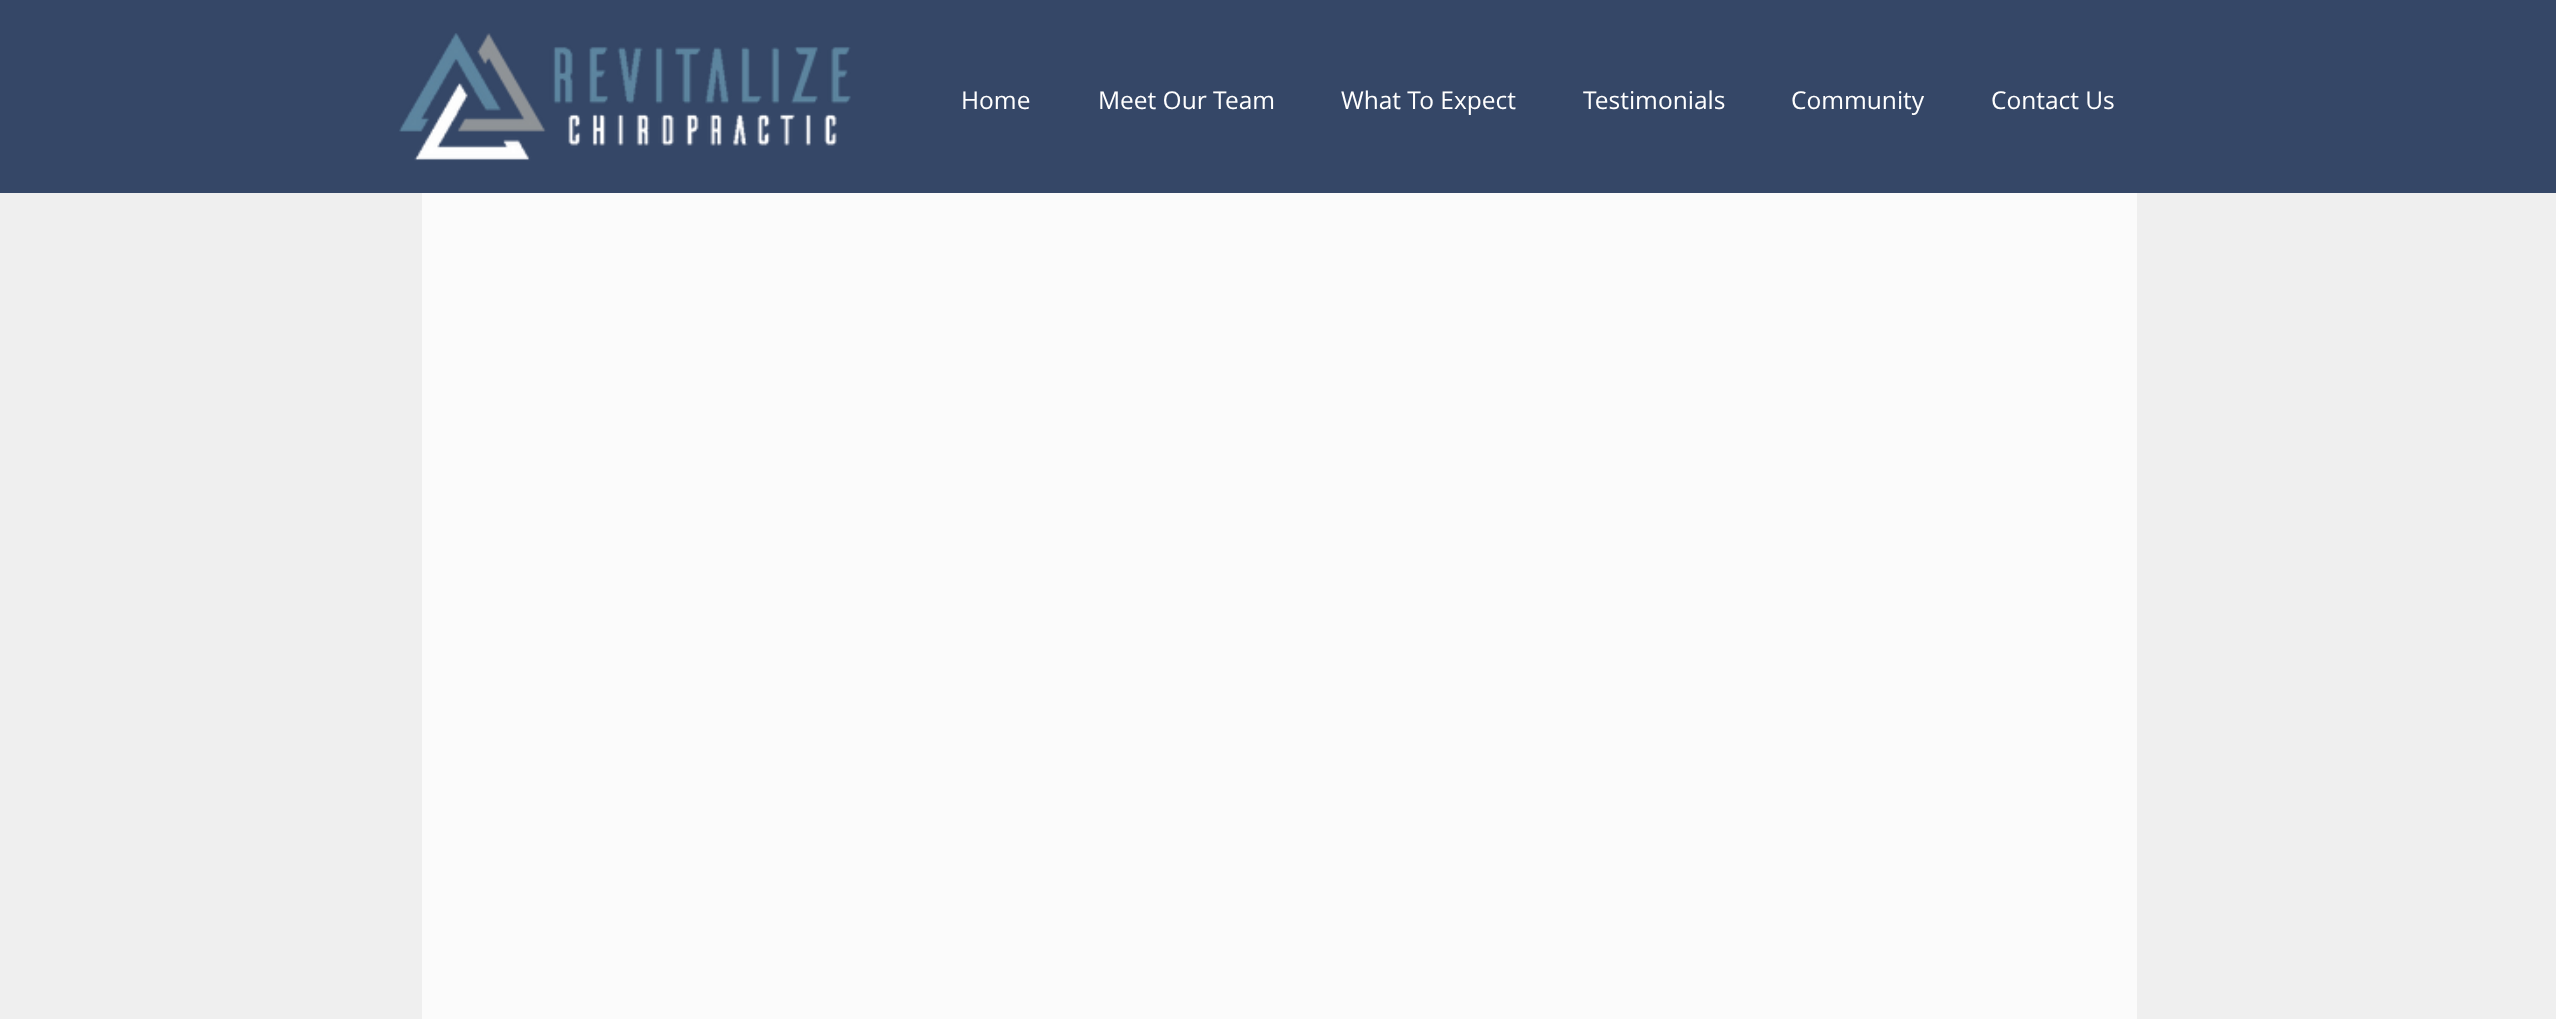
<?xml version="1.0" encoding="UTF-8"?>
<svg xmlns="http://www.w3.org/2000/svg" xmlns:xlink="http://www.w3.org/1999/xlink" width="2556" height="1019">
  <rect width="100%" height="100%" fill="#efefef" />
  <rect width="2556" height="193" fill="#354767" />
  <image x="399" y="33" width="452" height="128" xlink:href="image1.png" />
  <rect x="422" y="193" width="1715" height="826" fill="#fbfbfb" />
  <text x="961" y="109" style="font-family: Open Sans; font-size: 24.5px; fill: #ffffff">Home</text>
  <text x="1098" y="109" style="font-family: Open Sans; font-size: 24.5px; fill: #ffffff">Meet Our Team</text>
  <text x="1341" y="109" style="font-family: Open Sans; font-size: 24.5px; fill: #ffffff">What To Expect</text>
  <text x="1583" y="109" style="font-family: Open Sans; font-size: 24.5px; fill: #ffffff">Testimonials</text>
  <text x="1791" y="109" style="font-family: Open Sans; font-size: 24.5px; fill: #ffffff">Community</text>
  <text x="1991" y="109" style="font-family: Open Sans; font-size: 24.5px; fill: #ffffff">Contact Us</text>
</svg>
